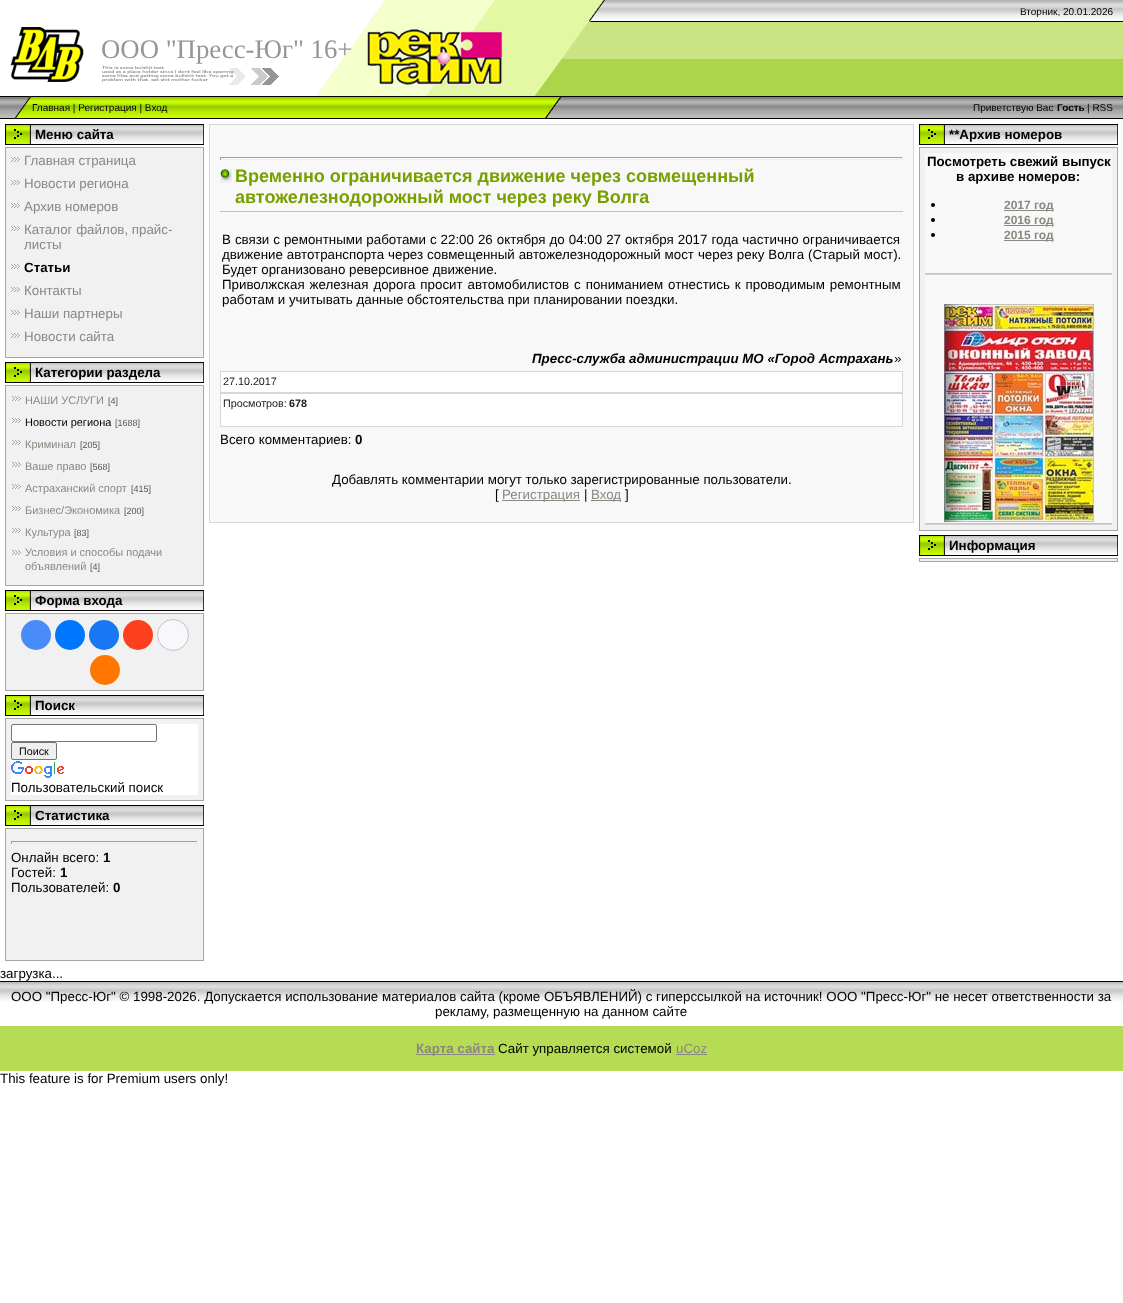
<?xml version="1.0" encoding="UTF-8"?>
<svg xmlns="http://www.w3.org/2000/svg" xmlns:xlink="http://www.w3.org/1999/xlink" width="1123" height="1303">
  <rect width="100%" height="100%" fill="#ffffff" />
  <image x="561" y="0" width="562" height="119" xlink:href="image1.png" />
  <image x="101" y="0" width="504" height="22" xlink:href="image2.png" />
  <image x="0" y="22" width="101" height="74" xlink:href="image3.png" />
  <image x="101" y="22" width="487" height="74" xlink:href="image4.png" />
  <image x="0" y="96" width="32" height="23" xlink:href="image5.png" />
  <image x="32" y="96" width="505" height="23" xlink:href="image6.png" />
  <image x="537" y="96" width="24" height="23" xlink:href="image7.png" />
  <image x="5" y="124" width="199" height="21" xlink:href="image8.png" />
  <rect x="5.5" y="147.5" width="198" height="210" fill="#f1f1f1" stroke="#a7a6a6" />
  <image x="11" y="157" width="9" height="5" xlink:href="image9.png" />
  <image x="11" y="180" width="9" height="5" xlink:href="image9.png" />
  <image x="11" y="203" width="9" height="5" xlink:href="image9.png" />
  <image x="11" y="226" width="9" height="5" xlink:href="image9.png" />
  <image x="11" y="264" width="9" height="5" xlink:href="image9.png" />
  <image x="11" y="287" width="9" height="5" xlink:href="image9.png" />
  <image x="11" y="310" width="9" height="5" xlink:href="image9.png" />
  <image x="11" y="333" width="9" height="5" xlink:href="image9.png" />
  <image x="5" y="362" width="199" height="21" xlink:href="image8.png" />
  <rect x="5.5" y="385.5" width="198" height="200" fill="#f1f1f1" stroke="#a7a6a6" />
  <image x="12" y="396" width="9" height="5" xlink:href="image9.png" />
  <image x="12" y="418" width="9" height="5" xlink:href="image9.png" />
  <image x="12" y="440" width="9" height="5" xlink:href="image9.png" />
  <image x="12" y="462" width="9" height="5" xlink:href="image9.png" />
  <image x="12" y="484" width="9" height="5" xlink:href="image9.png" />
  <image x="12" y="506" width="9" height="5" xlink:href="image9.png" />
  <image x="12" y="528" width="9" height="5" xlink:href="image9.png" />
  <image x="12" y="550" width="9" height="5" xlink:href="image9.png" />
  <image x="5" y="590" width="199" height="21" xlink:href="image8.png" />
  <rect x="5.5" y="613.5" width="198" height="77" fill="#f1f1f1" stroke="#a7a6a6" />
  <circle cx="36" cy="635" r="15" fill="#498bfa" />
  <circle cx="70" cy="635" r="15" fill="#0077ff" />
  <circle cx="104" cy="635" r="15" fill="#1877f2" />
  <circle cx="138" cy="635" r="15" fill="#fc3f1d" />
  <circle cx="173" cy="635" r="15.5" fill="#f8f8fc" stroke="#c4c4c4" />
  <circle cx="105" cy="670" r="15" fill="#ff7700" />
  <image x="5" y="695" width="199" height="21" xlink:href="image8.png" />
  <rect x="5.5" y="718.5" width="198" height="82" fill="#f1f1f1" stroke="#a7a6a6" />
  <rect x="11" y="724" width="187" height="71" fill="#ffffff" />
  <rect x="11.5" y="724.5" width="145" height="17" rx="1.5" fill="none" stroke="#767676" />
  <rect x="11.5" y="742.5" width="45" height="17" rx="1.5" fill="#efefef" stroke="#767676" />
  <image x="11" y="761" width="53" height="17" xlink:href="image10.png" />
  <image x="5" y="805" width="199" height="21" xlink:href="image8.png" />
  <rect x="5.5" y="828.5" width="198" height="132" fill="#f1f1f1" stroke="#a7a6a6" />
  <rect x="11" y="841" width="187" height="1" fill="#9f9f9f" />
  <rect x="197" y="841" width="1" height="3" fill="#eeeeee" />
  <rect x="11" y="843" width="187" height="1" fill="#eeeeee" />
  <rect x="11" y="841" width="1" height="3" fill="#9f9f9f" />
  <rect x="209.5" y="124.5" width="704" height="398" fill="none" stroke="#d7d7d7" />
  <rect x="210" y="125" width="703" height="397" fill="#f8f8f8" />
  <rect x="220" y="157" width="683" height="1" fill="#9f9f9f" />
  <rect x="902" y="157" width="1" height="3" fill="#eeeeee" />
  <rect x="220" y="159" width="683" height="1" fill="#eeeeee" />
  <rect x="220" y="157" width="1" height="3" fill="#9f9f9f" />
  <image x="220" y="169" width="12" height="14" xlink:href="image11.png" />
  <rect x="220" y="211" width="683" height="1" fill="#c2c2c2" />
  <rect x="220.5" y="371.5" width="682" height="21" fill="#ffffff" stroke="#d7d7d7" />
  <rect x="220.5" y="393.5" width="682" height="33" fill="#ffffff" stroke="#d7d7d7" />
  <rect x="502" y="500" width="78" height="1" fill="#8b8881" />
  <rect x="591" y="500" width="30" height="1" fill="#8b8881" />
  <image x="919" y="124" width="199" height="21" xlink:href="image8.png" />
  <rect x="919.5" y="147.5" width="198" height="383" fill="#f1f1f1" stroke="#a7a6a6" />
  <rect x="925" y="153" width="187" height="120" fill="#f8f8f8" />
  <circle cx="933" cy="205" r="2" fill="#000000" />
  <rect x="1004" y="210" width="49" height="1" fill="#8b8881" />
  <circle cx="933" cy="220" r="2" fill="#000000" />
  <rect x="1004" y="225" width="49" height="1" fill="#8b8881" />
  <circle cx="933" cy="235" r="2" fill="#000000" />
  <rect x="1004" y="240" width="49" height="1" fill="#8b8881" />
  <image x="925" y="273" width="187" height="2" xlink:href="image12.png" />
  <rect x="925" y="275" width="187" height="248" fill="#f8f8f8" />
  <image x="944" y="304" width="150" height="218" xlink:href="image13.png" />
  <image x="925" y="523" width="187" height="2" xlink:href="image12.png" />
  <image x="919" y="535" width="199" height="21" xlink:href="image8.png" />
  <rect x="919.5" y="558.5" width="198" height="3" fill="#f1f1f1" stroke="#a7a6a6" />
  <image x="0" y="981" width="1123" height="45" xlink:href="image14.png" />
  <rect y="1026" width="1123" height="45" fill="#b5dc54" />
  <rect x="416" y="1054" width="79" height="1" fill="#8b8881" />
  <rect x="676" y="1054" width="31" height="1" fill="#8b8881" />
  <text x="1020" y="15" style="font-family: Liberation Sans; font-size: 10px; fill: #000000">Вторник, 20.01.2026</text>
  <text x="101" y="58" style="font-family: Liberation Serif; font-size: 26.75px; fill: #969595">ООО "Пресс-Юг" 16+</text>
  <text x="32" y="111" style="font-family: Liberation Sans; font-size: 10px; fill: #000000">Главная | Регистрация | Вход</text>
  <text x="973" y="111" style="font-family: Liberation Sans; font-size: 10px; fill: #000000">Приветствую Вас</text>
  <text x="1057" y="111" style="font-family: Liberation Sans; font-size: 10px; font-weight: bold; fill: #000000">Гость</text>
  <text x="1087" y="111" style="font-family: Liberation Sans; font-size: 10px; fill: #000000">| RSS</text>
  <text x="35" y="139" style="font-family: Liberation Sans; font-size: 13.33px; font-weight: bold; fill: #000000">Меню сайта</text>
  <text x="24" y="165" style="font-family: Liberation Sans; font-size: 13.33px; fill: #8b8881">Главная страница</text>
  <text x="24" y="188" style="font-family: Liberation Sans; font-size: 13.33px; fill: #8b8881">Новости региона</text>
  <text x="24" y="211" style="font-family: Liberation Sans; font-size: 13.33px; fill: #8b8881">Архив номеров</text>
  <text x="24" y="234" style="font-family: Liberation Sans; font-size: 13.33px; fill: #8b8881">Каталог файлов, прайс-</text>
  <text x="24" y="249" style="font-family: Liberation Sans; font-size: 13.33px; fill: #8b8881">листы</text>
  <text x="24" y="272" style="font-family: Liberation Sans; font-size: 13.33px; font-weight: bold; fill: #000000">Статьи</text>
  <text x="24" y="295" style="font-family: Liberation Sans; font-size: 13.33px; fill: #8b8881">Контакты</text>
  <text x="24" y="318" style="font-family: Liberation Sans; font-size: 13.33px; fill: #8b8881">Наши партнеры</text>
  <text x="24" y="341" style="font-family: Liberation Sans; font-size: 13.33px; fill: #8b8881">Новости сайта</text>
  <text x="35" y="377" style="font-family: Liberation Sans; font-size: 13.33px; font-weight: bold; fill: #000000">Категории раздела</text>
  <text x="25" y="404" style="font-family: Liberation Sans; font-size: 11px; fill: #8b8881">НАШИ УСЛУГИ</text>
  <text x="108" y="404" style="font-family: Liberation Sans; font-size: 9px; fill: #555555">[4]</text>
  <text x="25" y="426" style="font-family: Liberation Sans; font-size: 11px; fill: #000000">Новости региона</text>
  <text x="115" y="426" style="font-family: Liberation Sans; font-size: 9px; fill: #555555">[1688]</text>
  <text x="25" y="448" style="font-family: Liberation Sans; font-size: 11px; fill: #8b8881">Криминал</text>
  <text x="80" y="448" style="font-family: Liberation Sans; font-size: 9px; fill: #555555">[205]</text>
  <text x="25" y="470" style="font-family: Liberation Sans; font-size: 11px; fill: #8b8881">Ваше право</text>
  <text x="90" y="470" style="font-family: Liberation Sans; font-size: 9px; fill: #555555">[568]</text>
  <text x="25" y="492" style="font-family: Liberation Sans; font-size: 11px; fill: #8b8881">Астраханский спорт</text>
  <text x="131" y="492" style="font-family: Liberation Sans; font-size: 9px; fill: #555555">[415]</text>
  <text x="25" y="514" style="font-family: Liberation Sans; font-size: 11px; fill: #8b8881">Бизнес/Экономика</text>
  <text x="124" y="514" style="font-family: Liberation Sans; font-size: 9px; fill: #555555">[200]</text>
  <text x="25" y="536" style="font-family: Liberation Sans; font-size: 11px; fill: #8b8881">Культура</text>
  <text x="74" y="536" style="font-family: Liberation Sans; font-size: 9px; fill: #555555">[83]</text>
  <text x="25" y="556" style="font-family: Liberation Sans; font-size: 11px; fill: #8b8881">Условия и способы подачи</text>
  <text x="25" y="570" style="font-family: Liberation Sans; font-size: 11px; fill: #8b8881">объявлений</text>
  <text x="90" y="570" style="font-family: Liberation Sans; font-size: 9px; fill: #555555">[4]</text>
  <text x="35" y="605" style="font-family: Liberation Sans; font-size: 13.33px; font-weight: bold; fill: #000000">Форма входа</text>
  <text x="35" y="710" style="font-family: Liberation Sans; font-size: 13.33px; font-weight: bold; fill: #000000">Поиск</text>
  <text x="19" y="755" style="font-family: Liberation Sans; font-size: 10.75px; fill: #000000">Поиск</text>
  <text x="11" y="792" style="font-family: Liberation Sans; font-size: 13.33px; fill: #000000">Пользовательский поиск</text>
  <text x="35" y="820" style="font-family: Liberation Sans; font-size: 13.33px; font-weight: bold; fill: #000000">Статистика</text>
  <text x="11" y="862" style="font-family: Liberation Sans; font-size: 13.33px; fill: #000000">Онлайн всего:</text>
  <text x="103" y="862" style="font-family: Liberation Sans; font-size: 13.33px; font-weight: bold; fill: #000000">1</text>
  <text x="11" y="877" style="font-family: Liberation Sans; font-size: 13.33px; fill: #000000">Гостей:</text>
  <text x="60" y="877" style="font-family: Liberation Sans; font-size: 13.33px; font-weight: bold; fill: #000000">1</text>
  <text x="11" y="892" style="font-family: Liberation Sans; font-size: 13.33px; fill: #000000">Пользователей:</text>
  <text x="113" y="892" style="font-family: Liberation Sans; font-size: 13.33px; font-weight: bold; fill: #000000">0</text>
  <text x="235" y="182" style="font-family: Liberation Sans; font-size: 18px; font-weight: bold; fill: #779f00">Временно ограничивается движение через совмещенный</text>
  <text x="235" y="203" style="font-family: Liberation Sans; font-size: 18px; font-weight: bold; fill: #779f00">автожелезнодорожный мост через реку Волга</text>
  <text x="222" y="244" word-spacing="0.3" style="font-family: Liberation Sans; font-size: 13.33px; fill: #000000">В связи с ремонтными работами с 22:00 26 октября до 04:00 27 октября 2017 года частично ограничивается</text>
  <text x="222" y="259" word-spacing="0.25" style="font-family: Liberation Sans; font-size: 13.33px; fill: #000000">движение автотранспорта через совмещенный автожелезнодорожный мост через реку Волга (Старый мост).</text>
  <text x="222" y="274" style="font-family: Liberation Sans; font-size: 13.33px; fill: #000000">Будет организовано реверсивное движение.</text>
  <text x="222" y="289" word-spacing="1.25" style="font-family: Liberation Sans; font-size: 13.33px; fill: #000000">Приволжская железная дорога просит автомобилистов с пониманием отнестись к проводимым ремонтным</text>
  <text x="222" y="304" style="font-family: Liberation Sans; font-size: 13.33px; fill: #000000">работам и учитывать данные обстоятельства при планировании поездки.</text>
  <text x="532" y="363" style="font-family: Liberation Sans; font-size: 13.33px; font-weight: bold; font-style: italic; fill: #000000">Пресс-служба администрации МО «Город Астрахань</text>
  <text x="894" y="363" style="font-family: Liberation Sans; font-size: 13.33px; fill: #000000">»</text>
  <text x="223" y="385" style="font-family: Liberation Sans; font-size: 10.75px; fill: #1a1a1a">27.10.2017</text>
  <text x="223" y="407" style="font-family: Liberation Sans; font-size: 10.75px; fill: #1a1a1a">Просмотров:</text>
  <text x="289" y="407" style="font-family: Liberation Sans; font-size: 10.75px; font-weight: bold; fill: #1a1a1a">678</text>
  <text x="220" y="444" style="font-family: Liberation Sans; font-size: 13.33px; fill: #000000">Всего комментариев:</text>
  <text x="355" y="444" style="font-family: Liberation Sans; font-size: 13.33px; font-weight: bold; fill: #000000">0</text>
  <text x="332" y="484" style="font-family: Liberation Sans; font-size: 13.33px; fill: #000000">Добавлять комментарии могут только зарегистрированные пользователи.</text>
  <text x="495" y="499" style="font-family: Liberation Sans; font-size: 13.33px; fill: #000000">[</text>
  <text x="502" y="499" style="font-family: Liberation Sans; font-size: 13.33px; fill: #8b8881">Регистрация</text>
  <text x="584" y="499" style="font-family: Liberation Sans; font-size: 13.33px; fill: #000000">|</text>
  <text x="591" y="499" style="font-family: Liberation Sans; font-size: 13.33px; fill: #8b8881">Вход</text>
  <text x="625" y="499" style="font-family: Liberation Sans; font-size: 13.33px; fill: #000000">]</text>
  <text x="949" y="139" style="font-family: Liberation Sans; font-size: 13.33px; font-weight: bold; fill: #000000">**Архив номеров</text>
  <text x="927" y="166" style="font-family: Liberation Sans; font-size: 13.33px; font-weight: bold; fill: #000000">Посмотреть свежий выпуск</text>
  <text x="956" y="181" style="font-family: Liberation Sans; font-size: 13.33px; font-weight: bold; fill: #000000">в архиве номеров:</text>
  <text x="1004" y="209" style="font-family: Liberation Sans; font-size: 12px; font-weight: bold; fill: #8b8881">2017 год</text>
  <text x="1004" y="224" style="font-family: Liberation Sans; font-size: 12px; font-weight: bold; fill: #8b8881">2016 год</text>
  <text x="1004" y="239" style="font-family: Liberation Sans; font-size: 12px; font-weight: bold; fill: #8b8881">2015 год</text>
  <text x="949" y="550" style="font-family: Liberation Sans; font-size: 13.33px; font-weight: bold; fill: #000000">Информация</text>
  <text x="0" y="978" style="font-family: Liberation Sans; font-size: 13.33px; fill: #000000">загрузка...</text>
  <text x="11" y="1001" style="font-family: Liberation Sans; font-size: 13.33px; fill: #000000">ООО "Пресс-Юг" © 1998-2026. Допускается использование материалов сайта (кроме ОБЪЯВЛЕНИЙ) с гиперссылкой на источник! ООО "Пресс-Юг" не несет ответственности за</text>
  <text x="435" y="1016" style="font-family: Liberation Sans; font-size: 13.33px; fill: #000000">рекламу, размещенную на данном сайте</text>
  <text x="416" y="1053" style="font-family: Liberation Sans; font-size: 13.33px; font-weight: bold; fill: #8b8881">Карта сайта</text>
  <text x="498" y="1053" style="font-family: Liberation Sans; font-size: 13.33px; fill: #000000">Сайт управляется системой</text>
  <text x="676" y="1053" style="font-family: Liberation Sans; font-size: 13.33px; fill: #8b8881">uCoz</text>
  <text x="0" y="1083" style="font-family: Liberation Sans; font-size: 13.33px; fill: #000000">This feature is for Premium users only!</text>
</svg>
